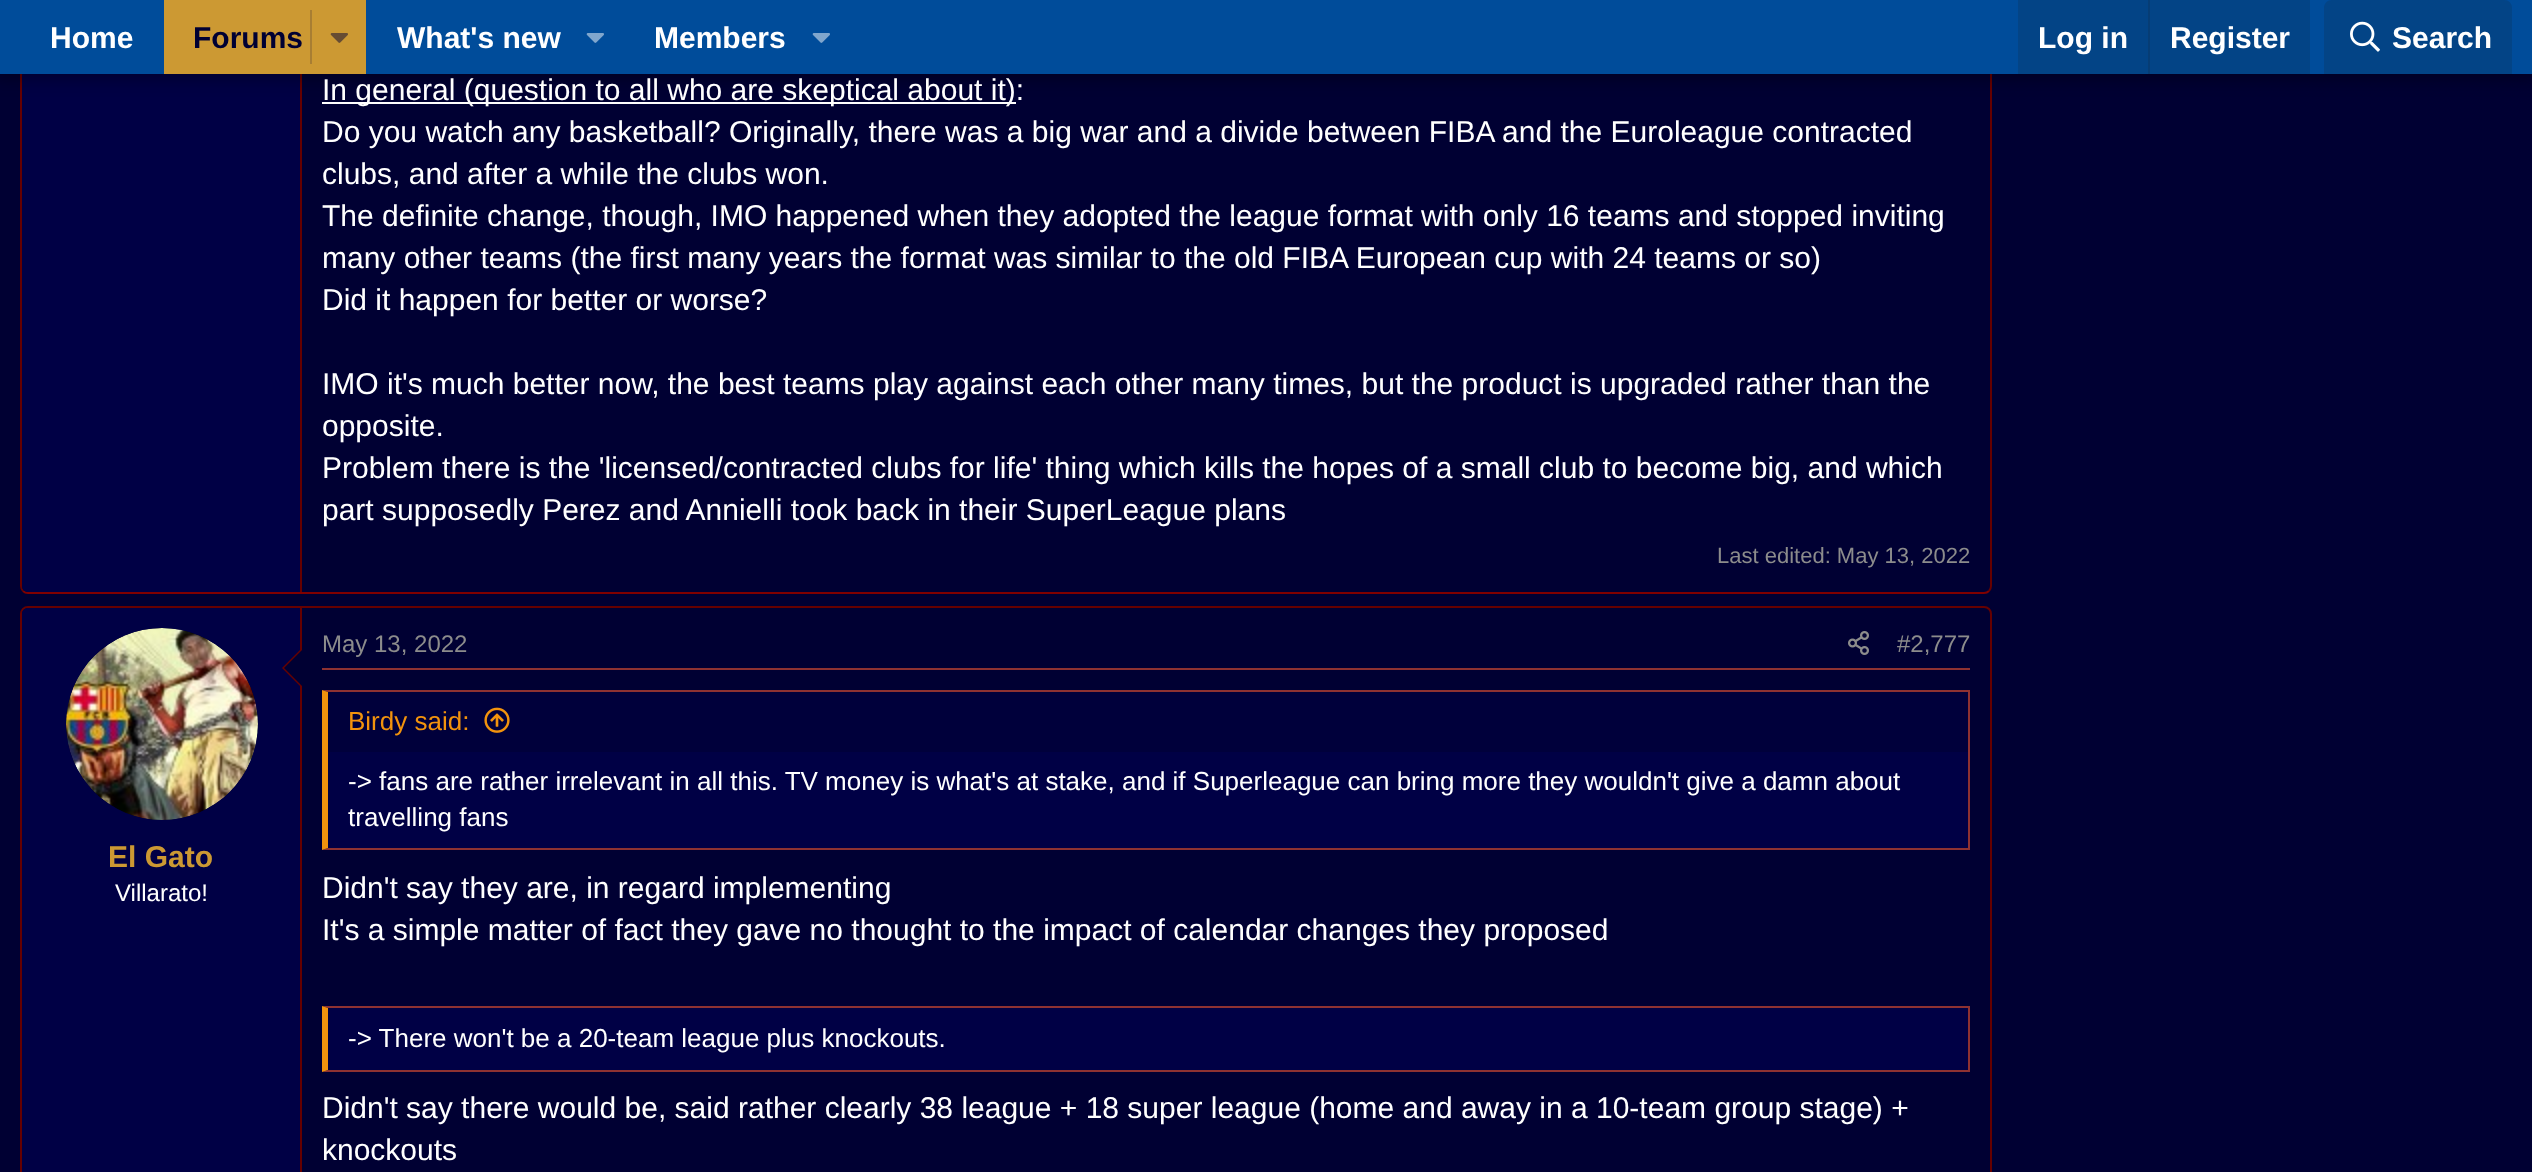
<?xml version="1.0" encoding="UTF-8"?>
<svg xmlns="http://www.w3.org/2000/svg" xmlns:xlink="http://www.w3.org/1999/xlink" width="2532" height="1172">
  <rect width="100%" height="100%" fill="#000033" />
  <path d="M 1989 591 c -1.5 1.5 -3 2 -5 2 h -1956 c -2 0 -3.5 -0.5 -5 -2" fill="none" stroke="#800000" stroke-width="2" />
  <path d="M 23 591 c -1.5 -1.5 -2 -3 -2 -5 v -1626 c 0 -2 0.5 -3.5 2 -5 c 1.5 -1.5 3 -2 5 -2 h 1956 c 2 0 3.5 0.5 5 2 c 1.5 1.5 2 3 2 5 v 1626 c 0 2 -0.5 3.5 -2 5" fill="none" stroke="#660000" stroke-width="2" />
  <path d="M 28 -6 h 274 v 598 h -274 c -3.5 0 -6 -2.5 -6 -6 v -586 c 0 -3.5 2.5 -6 6 -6 z" fill="#000045" />
  <rect x="300" y="74" width="2" height="518" fill="#660000" />
  <rect x="322" y="102" width="694" height="2" fill="#ffffff" />
  <rect x="-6" y="-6" width="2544" height="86" fill="#000000" fill-opacity="0.3" filter="blur(8px)" />
  <rect width="2532" height="74" fill="#004c9a" />
  <rect x="164" width="202" height="74" fill="#cc9933" />
  <rect x="310" y="10" width="2" height="54" fill="#a87e33" />
  <image x="330" y="33" width="18" height="10" xlink:href="image1.png" />
  <image x="586" y="33" width="18" height="10" xlink:href="image2.png" />
  <image x="812" y="33" width="18" height="10" xlink:href="image2.png" />
  <rect x="2018" width="292" height="74" fill="#034486" />
  <rect x="2148" width="2" height="74" fill="#063d75" />
  <path d="M 2332 0 h 172 c 4.5 0 8 3.5 8 8 v 66 h -188 v -66 c 0 -4.5 3.5 -8 8 -8 z" fill="#034486" />
  <image x="2350" y="21" width="30" height="31" xlink:href="image3.png" />
  <path d="M 23 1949 c -1.5 -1.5 -2 -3 -2 -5 v -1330 c 0 -2 0.5 -3.5 2 -5 c 1.5 -1.5 3 -2 5 -2 h 1956 c 2 0 3.5 0.5 5 2 c 1.5 1.5 2 3 2 5 v 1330 c 0 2 -0.5 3.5 -2 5" fill="none" stroke="#660000" stroke-width="2" />
  <path d="M 28 608 h 274 v 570 h -274 c -3.5 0 -6 -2.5 -6 -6 v -558 c 0 -3.5 2.5 -6 6 -6 z" fill="#000045" />
  <rect x="300" y="608" width="2" height="564" fill="#660000" />
  <circle cx="162" cy="724" r="96" fill="#000033" />
  <image x="66" y="628" width="192" height="192" xlink:href="image4.png" />
  <path d="M 302 648 v 40 l -20 -20 z" fill="#660000" />
  <path d="M 302 650 v 36 l -18 -18 z" fill="#000033" />
  <rect x="322" y="668" width="1648" height="2" fill="#8e3232" />
  <image x="1848" y="631" width="21" height="24" xlink:href="image5.png" />
  <rect x="328" y="752" width="1640" height="96" fill="#000045" />
  <path d="M 322 690 h 1648 l -2 2 h -1640 z" fill="#8e3232" />
  <rect x="1968" y="690" width="2" height="160" fill="#8e3232" />
  <path d="M 1970 850 h -1648 l 6 -2 h 1640 z" fill="#8e3232" />
  <path d="M 322 850 v -160 l 6 2 v 156 z" fill="#f2930d" />
  <rect x="328" y="692" width="1640" height="60" fill="#00003b" />
  <image x="484" y="707" width="26" height="26" xlink:href="image6.png" />
  <rect x="328" y="1008" width="1640" height="62" fill="#000045" />
  <path d="M 322 1006 h 1648 l -2 2 h -1640 z" fill="#8e3232" />
  <rect x="1968" y="1006" width="2" height="66" fill="#8e3232" />
  <path d="M 1970 1072 h -1648 l 6 -2 h 1640 z" fill="#8e3232" />
  <path d="M 322 1072 v -66 l 6 2 v 62 z" fill="#f2930d" />
  <text x="50" y="48" style="font-family: Liberation Sans; font-size: 30px; font-weight: bold; fill: #ffffff">Home</text>
  <text x="193" y="48" style="font-family: Liberation Sans; font-size: 30px; font-weight: bold; fill: #000033">Forums</text>
  <text x="397" y="48" style="font-family: Liberation Sans; font-size: 30px; font-weight: bold; fill: #ffffff">What's new</text>
  <text x="654" y="48" style="font-family: Liberation Sans; font-size: 30px; font-weight: bold; fill: #ffffff">Members</text>
  <text x="2038" y="48" style="font-family: Liberation Sans; font-size: 30px; font-weight: bold; fill: #ffffff">Log in</text>
  <text x="2170" y="48" style="font-family: Liberation Sans; font-size: 30px; font-weight: bold; fill: #ffffff">Register</text>
  <text x="2392" y="48" style="font-family: Liberation Sans; font-size: 30px; font-weight: bold; fill: #ffffff">Search</text>
  <text x="322" y="100" style="font-family: Liberation Sans; font-size: 30px; fill: #ffffff">In general (question to all who are skeptical about it):</text>
  <text x="322" y="142" style="font-family: Liberation Sans; font-size: 30px; fill: #ffffff">Do you watch any basketball? Originally, there was a big war and a divide between FIBA and the Euroleague contracted</text>
  <text x="322" y="184" style="font-family: Liberation Sans; font-size: 30px; fill: #ffffff">clubs, and after a while the clubs won.</text>
  <text x="322" y="226" style="font-family: Liberation Sans; font-size: 30px; fill: #ffffff">The definite change, though, IMO happened when they adopted the league format with only 16 teams and stopped inviting</text>
  <text x="322" y="268" style="font-family: Liberation Sans; font-size: 30px; fill: #ffffff">many other teams (the first many years the format was similar to the old FIBA European cup with 24 teams or so)</text>
  <text x="322" y="310" style="font-family: Liberation Sans; font-size: 30px; fill: #ffffff">Did it happen for better or worse?</text>
  <text x="322" y="394" style="font-family: Liberation Sans; font-size: 30px; fill: #ffffff">IMO it's much better now, the best teams play against each other many times, but the product is upgraded rather than the</text>
  <text x="322" y="436" style="font-family: Liberation Sans; font-size: 30px; fill: #ffffff">opposite.</text>
  <text x="322" y="478" style="font-family: Liberation Sans; font-size: 30px; fill: #ffffff">Problem there is the 'licensed/contracted clubs for life' thing which kills the hopes of a small club to become big, and which</text>
  <text x="322" y="520" style="font-family: Liberation Sans; font-size: 30px; fill: #ffffff">part supposedly Perez and Annielli took back in their SuperLeague plans</text>
  <text x="1717" y="563" style="font-family: Liberation Sans; font-size: 22px; fill: #8c8c8c">Last edited: May 13, 2022</text>
  <text x="108" y="867" style="font-family: Liberation Sans; font-size: 30px; font-weight: bold; fill: #cc9933">El Gato</text>
  <text x="115" y="901" style="font-family: Liberation Sans; font-size: 24px; fill: #ffffff">Villarato!</text>
  <text x="322" y="652" style="font-family: Liberation Sans; font-size: 24px; fill: #8c8c8c">May 13, 2022</text>
  <text x="1897" y="652" style="font-family: Liberation Sans; font-size: 24px; fill: #8c8c8c">#2,777</text>
  <text x="348" y="730" style="font-family: Liberation Sans; font-size: 26px; fill: #f2930d">Birdy said:</text>
  <text x="348" y="790" style="font-family: Liberation Sans; font-size: 26px; fill: #ffffff">-&gt; fans are rather irrelevant in all this. TV money is what's at stake, and if Superleague can bring more they wouldn't give a damn about</text>
  <text x="348" y="826" style="font-family: Liberation Sans; font-size: 26px; fill: #ffffff">travelling fans</text>
  <text x="322" y="898" style="font-family: Liberation Sans; font-size: 30px; fill: #ffffff">Didn't say they are, in regard implementing</text>
  <text x="322" y="940" style="font-family: Liberation Sans; font-size: 30px; fill: #ffffff">It's a simple matter of fact they gave no thought to the impact of calendar changes they proposed</text>
  <text x="348" y="1047" style="font-family: Liberation Sans; font-size: 26px; fill: #ffffff">-&gt; There won't be a 20-team league plus knockouts.</text>
  <text x="322" y="1118" style="font-family: Liberation Sans; font-size: 30px; fill: #ffffff">Didn't say there would be, said rather clearly 38 league + 18 super league (home and away in a 10-team group stage) +</text>
  <text x="322" y="1160" style="font-family: Liberation Sans; font-size: 30px; fill: #ffffff">knockouts</text>
</svg>
